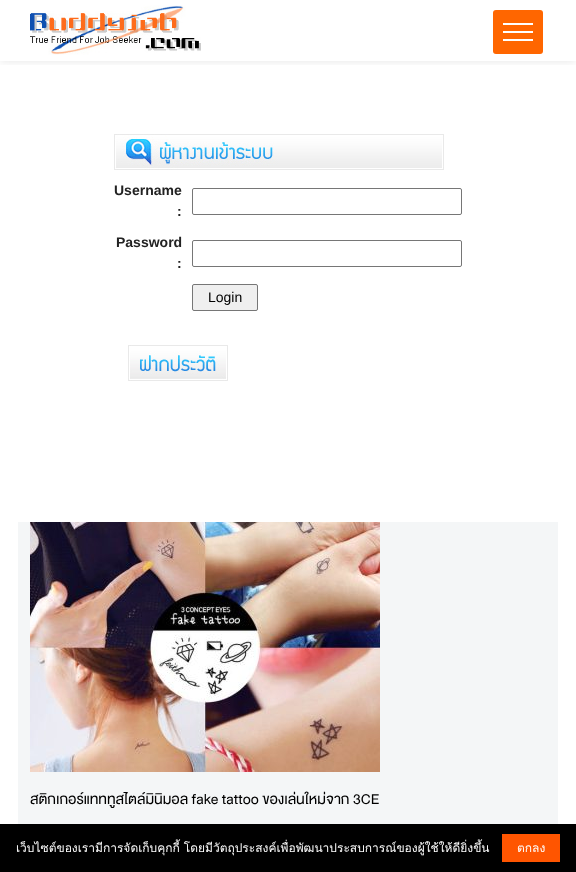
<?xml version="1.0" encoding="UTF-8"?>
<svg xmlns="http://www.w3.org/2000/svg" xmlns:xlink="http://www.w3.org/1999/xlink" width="576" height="872">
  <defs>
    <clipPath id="clip1"><rect x="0" y="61" width="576" height="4" /></clipPath>
  </defs>
  <rect width="100%" height="100%" fill="#ffffff" />
  <g clip-path="url(#clip1)">
    <rect width="576" height="61" fill="#000000" fill-opacity="0.1" filter="blur(5px)" />
  </g>
  <image x="30" y="5" width="171" height="50" xlink:href="image1.png" />
  <rect x="493" y="10" width="50" height="44" rx="3" fill="#ff6600" />
  <rect x="503" y="23" width="30" height="2" fill="#ffffff" />
  <rect x="503" y="31" width="30" height="2" fill="#ffffff" />
  <rect x="503" y="39" width="30" height="2" fill="#ffffff" />
  <image x="114" y="134" width="330" height="36" xlink:href="image2.png" />
  <rect x="192.5" y="188.5" width="269" height="26" rx="1.5" fill="none" stroke="#767676" />
  <rect x="192.5" y="240.5" width="269" height="26" rx="1.5" fill="none" stroke="#767676" />
  <rect x="192.5" y="284.5" width="65" height="26" rx="1.5" fill="#efefef" stroke="#767676" />
  <image x="128" y="345" width="100" height="36" xlink:href="image3.png" />
  <rect x="18" y="522" width="540" height="302" fill="#f4f6f7" />
  <image x="30" y="522" width="350" height="250" xlink:href="image4.png" />
  <rect y="824" width="576" height="48" fill="#000000" />
  <rect x="502" y="834" width="58" height="28" fill="#ff5500" />
  <text x="114" y="195" style="font-family: Liberation Sans; font-size: 14px; font-weight: bold; fill: #222222">Username</text>
  <text x="177" y="216" style="font-family: Liberation Sans; font-size: 14px; font-weight: bold; fill: #222222">:</text>
  <text x="116" y="247" style="font-family: Liberation Sans; font-size: 14px; font-weight: bold; fill: #222222">Password</text>
  <text x="177" y="268" style="font-family: Liberation Sans; font-size: 14px; font-weight: bold; fill: #222222">:</text>
  <text x="208" y="302" style="font-family: Liberation Sans; font-size: 14px; fill: #000000">Login</text>
  <text x="30" y="804" style="font-family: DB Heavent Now; font-size: 15px; fill: #000000">สติกเกอร์แทททูสไตล์มินิมอล fake tattoo ของเล่นใหม่จาก 3CE</text>
  <text x="16" y="852" style="font-family: Loma; font-size: 12px; fill: #ffffff">เว็บไซต์ของเรามีการจัดเก็บคุกกี้ โดยมีวัตถุประสงค์เพื่อพัฒนาประสบการณ์ของผู้ใช้ให้ดียิ่งขึ้น</text>
  <text x="517" y="852" style="font-family: Loma; font-size: 12px; fill: #ffffff">ตกลง</text>
</svg>
